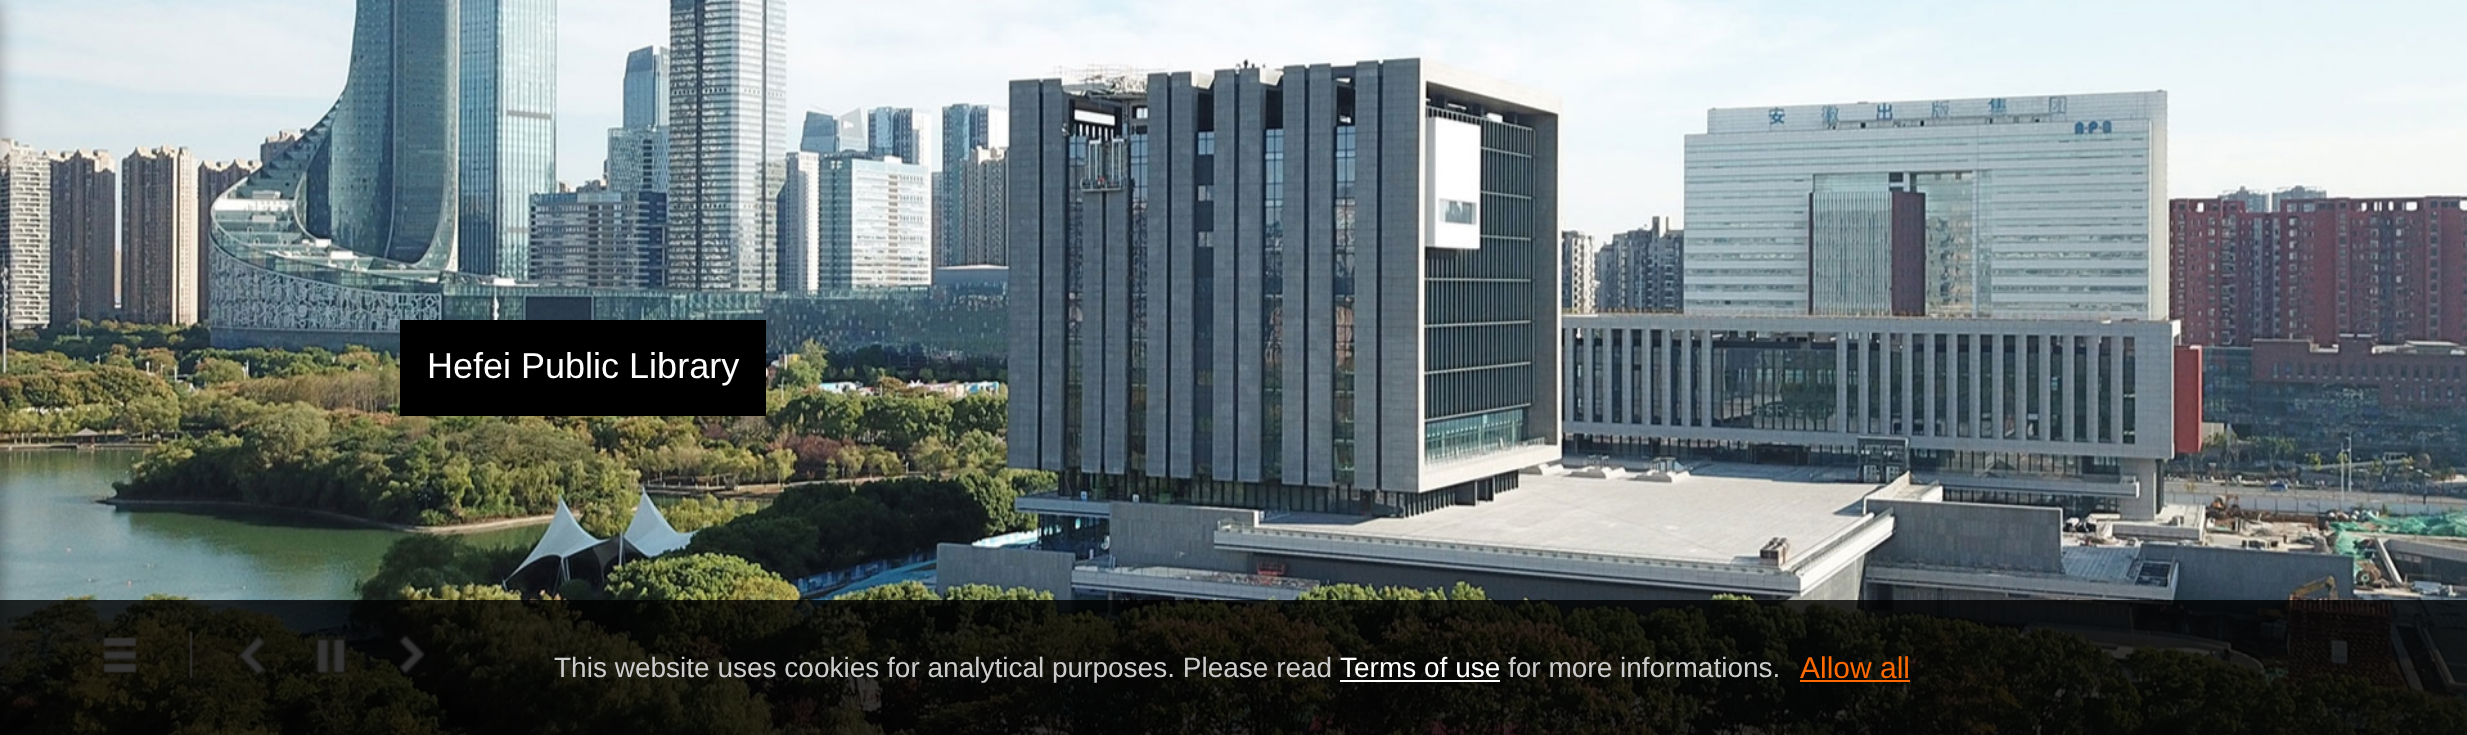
<?xml version="1.0" encoding="UTF-8"?>
<svg xmlns="http://www.w3.org/2000/svg" xmlns:xlink="http://www.w3.org/1999/xlink" width="2467" height="735">
  <rect width="100%" height="100%" fill="#ffffff" />
  <image x="0" y="0" width="2467" height="735" xlink:href="image1.png" />
  <rect x="-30" width="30" height="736" fill="#000000" fill-opacity="0.35" filter="blur(10px)" />
  <image x="100" y="630" width="96" height="50" xlink:href="image2.png" />
  <image x="237" y="635" width="30" height="41" xlink:href="image3.png" />
  <image x="312" y="635" width="38" height="43" xlink:href="image4.png" />
  <image x="398" y="635" width="27" height="40" xlink:href="image5.png" />
  <rect x="400" y="320" width="366" height="96" fill="#000000" />
  <rect y="600" width="2467" height="135" fill="#000000" fill-opacity="0.8" />
  <rect x="1340" y="680" width="160" height="2" fill="#ffffff" />
  <rect x="1800" y="680" width="110" height="2" fill="#ff6900" />
  <text x="427" y="378" style="font-family: Liberation Sans; font-size: 36px; fill: #ffffff">Hefei Public Library</text>
  <text x="554" y="677" style="font-family: Liberation Sans; font-size: 28px; fill: #cccccc">This website uses cookies for analytical purposes. Please read</text>
  <text x="1340" y="677" style="font-family: Liberation Sans; font-size: 28px; fill: #ffffff">Terms of use</text>
  <text x="1508" y="677" style="font-family: Liberation Sans; font-size: 28px; fill: #cccccc">for more informations.</text>
  <text x="1800" y="678" style="font-family: Liberation Sans; font-size: 30px; fill: #ff6900">Allow all</text>
</svg>
